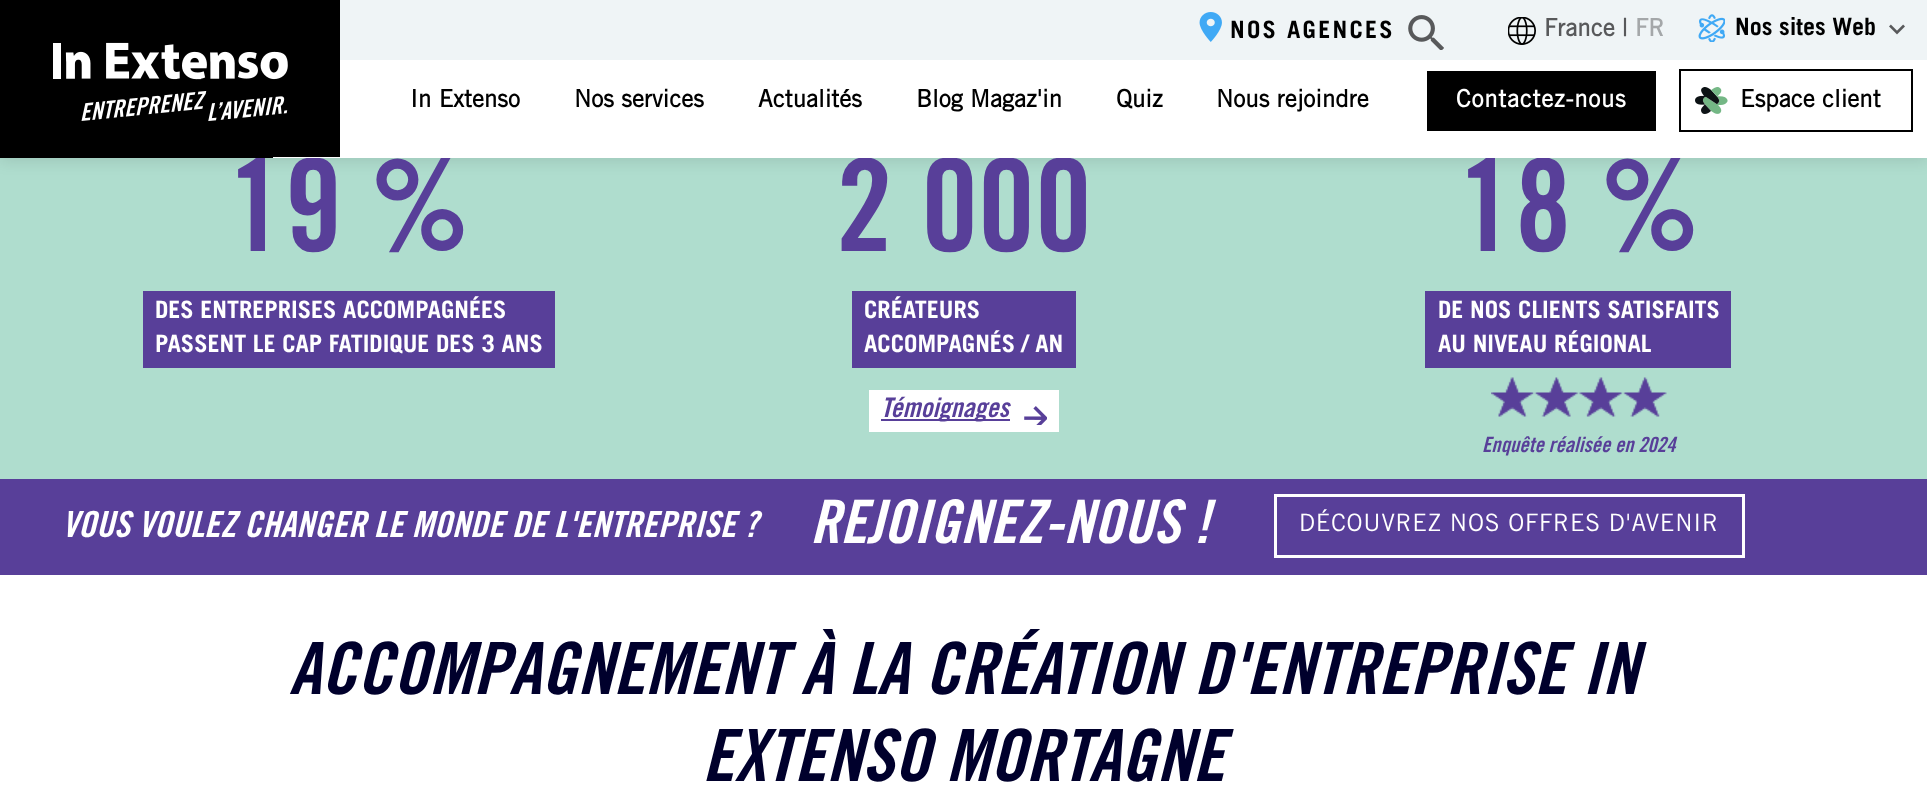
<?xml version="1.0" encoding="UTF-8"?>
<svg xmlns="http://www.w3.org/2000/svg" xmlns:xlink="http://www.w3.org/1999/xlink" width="1927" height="805">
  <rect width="100%" height="100%" fill="#ffffff" />
  <rect y="158" width="1927" height="321" fill="#afddce" />
  <rect y="3" width="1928" height="158" fill="#000000" fill-opacity="0.1" filter="blur(7.5px)" />
  <rect x="340" width="1587" height="60" fill="#eff4f6" />
  <image x="1199" y="12" width="23" height="30" xlink:href="image2.png" />
  <image x="1408" y="15" width="36" height="35" xlink:href="image3.png" />
  <image x="1508" y="17" width="28" height="28" xlink:href="image4.png" />
  <image x="1698" y="14" width="27" height="28" xlink:href="image5.png" />
  <image x="1889" y="24" width="16" height="11" xlink:href="image6.png" />
  <rect x="143" y="291" width="412" height="77" fill="#583f99" />
  <rect x="852" y="291" width="224" height="77" fill="#583f99" />
  <rect x="869" y="390" width="190" height="42" fill="#ffffff" />
  <rect x="881" y="419" width="129" height="2" fill="#583f99" />
  <image x="1024" y="406" width="23" height="19" xlink:href="image8.png" />
  <rect x="1425" y="291" width="306" height="77" fill="#583f99" />
  <image x="1491" y="377" width="176" height="40" xlink:href="image9.png" />
  <rect y="479" width="1927" height="96" fill="#583f99" />
  <rect x="1275.5" y="495.5" width="468" height="61" fill="none" stroke="#ffffff" stroke-width="3" />
  <text x="1230" y="38" style="font-family: 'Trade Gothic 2'; font-size: 24px; font-weight: bold; letter-spacing: 2.25px; fill: #000000">NOS AGENCES</text>
  <text x="1544" y="36" style="font-family: 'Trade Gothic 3'; font-size: 24px; font-weight: bold; fill: #58595b">France |</text>
  <text x="1635" y="36" style="font-family: 'Trade Gothic 3'; font-size: 24px; font-weight: bold; fill: #a4a7a9">FR</text>
  <text x="1735" y="35" style="font-family: 'Trade Gothic 2'; font-size: 24px; font-weight: bold; fill: #000000">Nos sites Web</text>
  <text x="228" y="251" style="font-family: Trade Gothic; font-size: 128px; font-weight: bold; fill: #583f99">19 %</text>
  <rect width="273" height="158" fill="#000000" />
  <text x="155" y="318" style="font-family: 'Trade Gothic 2'; font-size: 24px; font-weight: bold; fill: #ffffff">DES ENTREPRISES ACCOMPAGNÉES</text>
  <text x="155" y="352" style="font-family: 'Trade Gothic 2'; font-size: 24px; font-weight: bold; fill: #ffffff">PASSENT LE CAP FATIDIQUE DES 3 ANS</text>
  <text x="836" y="251" style="font-family: Trade Gothic; font-size: 128px; font-weight: bold; fill: #583f99">2 000</text>
  <text x="864" y="318" style="font-family: 'Trade Gothic 2'; font-size: 24px; font-weight: bold; fill: #ffffff">CRÉATEURS</text>
  <text x="864" y="352" style="font-family: 'Trade Gothic 2'; font-size: 24px; font-weight: bold; fill: #ffffff">ACCOMPAGNÉS / AN</text>
  <text x="881" y="417" style="font-family: Trade Gothic; font-size: 27px; font-weight: bold; font-style: italic; fill: #583f99">Témoignages</text>
  <text x="1458" y="251" style="font-family: Trade Gothic; font-size: 128px; font-weight: bold; fill: #583f99">18 %</text>
  <rect x="273" y="60" width="1654" height="98" fill="#ffffff" />
  <image x="1695" y="87" width="33" height="27" xlink:href="image7.png" />
  <rect x="1680" y="70" width="232" height="61" fill="none" stroke="#000000" stroke-width="2" />
  <text x="1740" y="107" style="font-family: 'Trade Gothic 3'; font-size: 24px; font-weight: bold; fill: #000000">Espace client</text>
  <rect x="1427" y="71" width="229" height="60" fill="#000000" />
  <text x="1456" y="107" style="font-family: 'Trade Gothic 3'; font-size: 24px; font-weight: bold; letter-spacing: 0.75px; fill: #ffffff">Contactez-nous</text>
  <text x="1216" y="107" style="font-family: 'Trade Gothic 3'; font-size: 24px; font-weight: bold; fill: #000000">Nous rejoindre</text>
  <text x="1116" y="107" style="font-family: 'Trade Gothic 3'; font-size: 24px; font-weight: bold; fill: #000000">Quiz</text>
  <text x="916" y="107" style="font-family: 'Trade Gothic 3'; font-size: 24px; font-weight: bold; fill: #000000">Blog Magaz'in</text>
  <text x="758" y="107" style="font-family: 'Trade Gothic 3'; font-size: 24px; font-weight: bold; fill: #000000">Actualités</text>
  <text x="574" y="107" style="font-family: 'Trade Gothic 3'; font-size: 24px; font-weight: bold; fill: #000000">Nos services</text>
  <text x="410" y="107" style="font-family: 'Trade Gothic 3'; font-size: 24px; font-weight: bold; fill: #000000">In Extenso</text>
  <image x="53" y="0" width="287" height="157" xlink:href="image1.png" />
  <text x="1438" y="318" style="font-family: 'Trade Gothic 2'; font-size: 24px; font-weight: bold; fill: #ffffff">DE NOS CLIENTS SATISFAITS</text>
  <text x="1438" y="352" style="font-family: 'Trade Gothic 2'; font-size: 24px; font-weight: bold; fill: #ffffff">AU NIVEAU RÉGIONAL</text>
  <text x="1482" y="452" style="font-family: Trade Gothic; font-size: 21px; font-weight: bold; font-style: italic; fill: #583f99">Enquête réalisée en 2024</text>
  <text x="62" y="537" style="font-family: Trade Gothic; font-size: 36px; font-weight: bold; font-style: italic; fill: #ffffff">VOUS VOULEZ CHANGER LE MONDE DE L'ENTREPRISE ?</text>
  <text x="810" y="543" style="font-family: Trade Gothic; font-size: 60px; font-weight: bold; font-style: italic; fill: #ffffff">REJOIGNEZ-NOUS !</text>
  <text x="1299" y="531" style="font-family: Trade Gothic; font-size: 24px; letter-spacing: 0.75px; fill: #ffffff">DÉCOUVREZ NOS OFFRES D'AVENIR</text>
  <text x="289" y="694" style="font-family: Trade Gothic; font-size: 72px; font-weight: bold; font-style: italic; fill: #00002c">ACCOMPAGNEMENT À LA CRÉATION D'ENTREPRISE IN</text>
  <text x="702" y="781" style="font-family: Trade Gothic; font-size: 72px; font-weight: bold; font-style: italic; fill: #00002c">EXTENSO MORTAGNE</text>
</svg>
